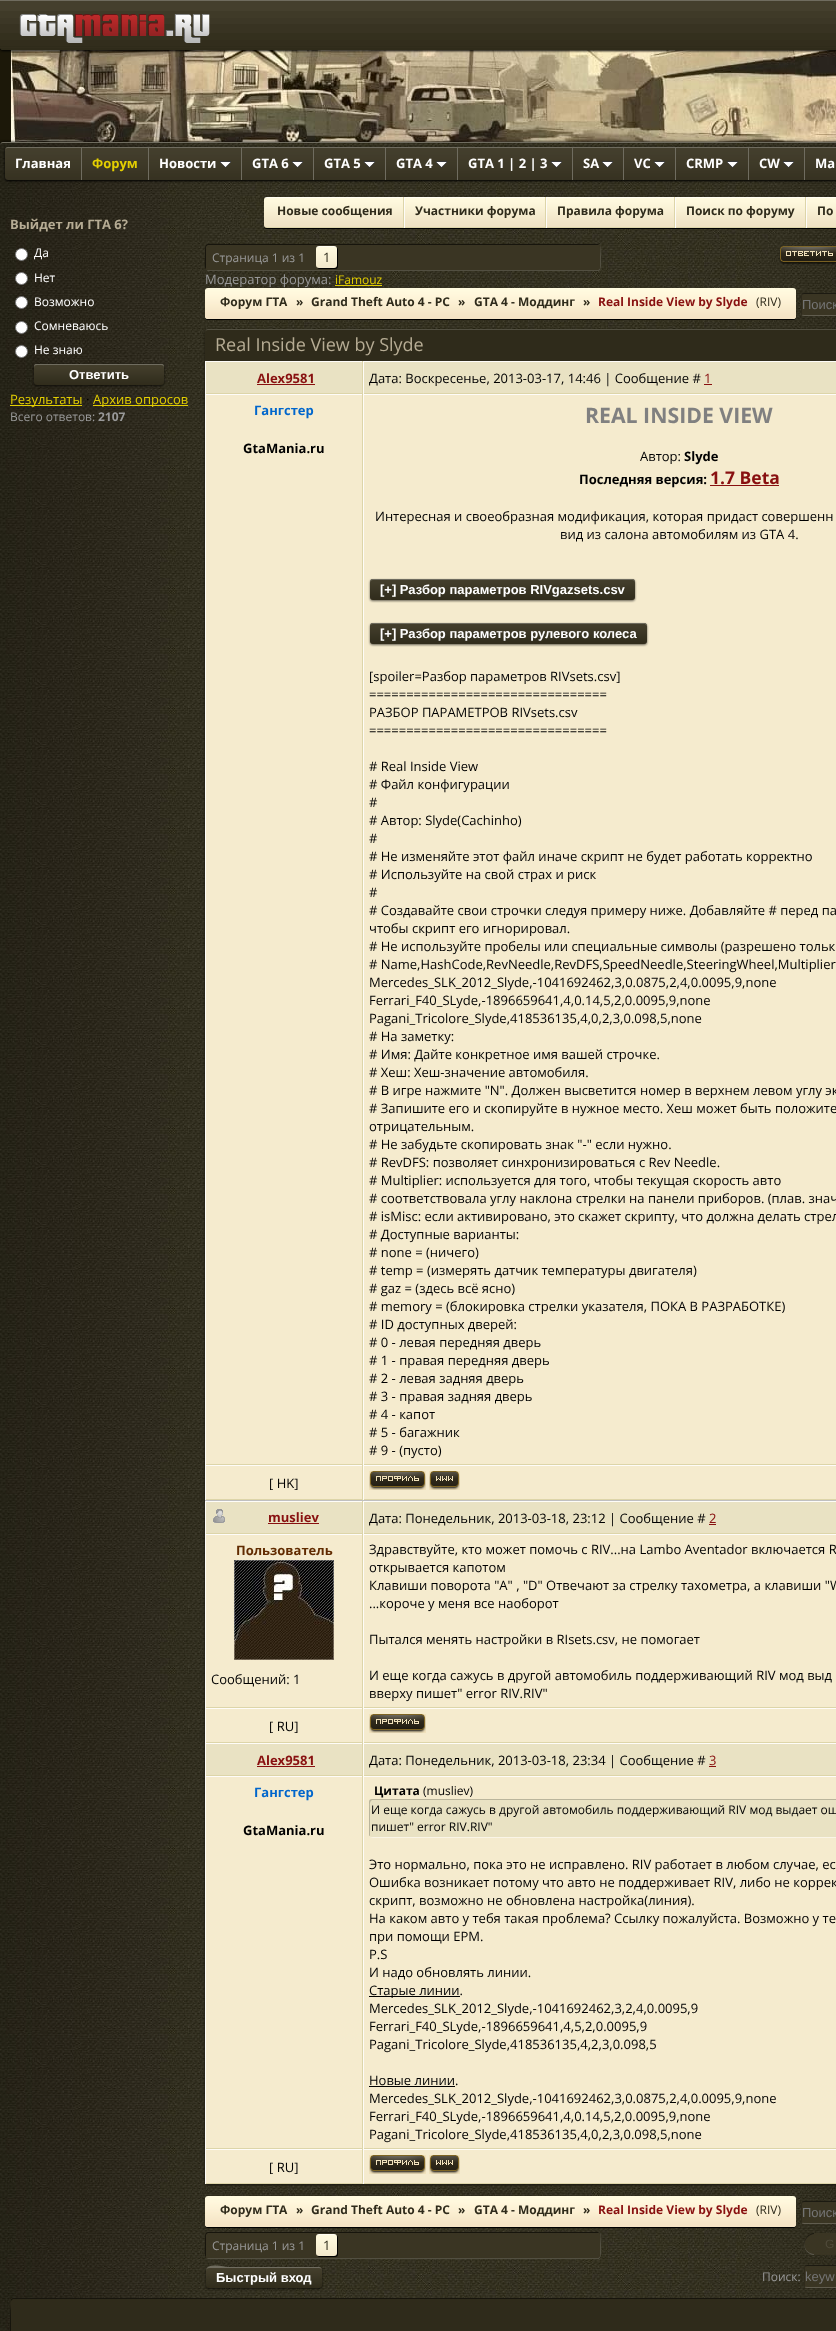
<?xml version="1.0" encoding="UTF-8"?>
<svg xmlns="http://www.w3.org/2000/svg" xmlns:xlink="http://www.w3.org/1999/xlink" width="836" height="2331">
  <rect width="100%" height="100%" fill="#1c1809" />
  <image x="11" y="50" width="825" height="92" xlink:href="image1.png" />
  <rect y="1" width="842" height="50" rx="3" fill="#000000" filter="blur(1px)" />
  <path d="M 0 0 h 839 v 47 c 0 1.5 -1.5 3 -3 3 h -833 c -1.5 0 -3 -1.5 -3 -3 z" fill="#443f2d" />
  <image x="0" y="11" width="836" height="39" xlink:href="image2.png" />
  <rect width="836" height="1" fill="#6f6c5f" />
  <image x="19" y="14" width="191" height="29" xlink:href="image3.png" />
  <rect y="142" width="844" height="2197" rx="3" fill="#000000" filter="blur(1.5px)" />
  <image x="0" y="142" width="836" height="2189" xlink:href="image4.png" />
  <path d="M 3 143 h 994 c 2 0 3 1 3 3 c 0 -2 -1 -4 -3 -4 h -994 c -2 0 -3 2 -3 4 c 0 -2 1 -3 3 -3 z" fill="#6f6c5f" />
  <rect x="5" y="148" width="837" height="33" rx="3" fill="#000000" filter="blur(1px)" />
  <image x="5" y="147" width="831" height="33" xlink:href="image5.png" />
  <path d="M 8 148 h 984 c 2 0 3 1 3 3 c 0 -2 -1 -4 -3 -4 h -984 c -2 0 -3 2 -3 4 c 0 -2 1 -3 3 -3 z" fill="#6f6c5f" />
  <rect x="81" y="147" width="1" height="33" fill="#6f6c5f" />
  <rect x="148" y="147" width="1" height="33" fill="#6f6c5f" />
  <rect x="241" y="147" width="1" height="33" fill="#6f6c5f" />
  <image x="220" y="161" width="11" height="7" xlink:href="image6.png" />
  <rect x="313" y="147" width="1" height="33" fill="#6f6c5f" />
  <image x="292" y="161" width="11" height="7" xlink:href="image6.png" />
  <rect x="385" y="147" width="1" height="33" fill="#6f6c5f" />
  <image x="364" y="161" width="11" height="7" xlink:href="image6.png" />
  <rect x="457" y="147" width="1" height="33" fill="#6f6c5f" />
  <image x="436" y="161" width="11" height="7" xlink:href="image6.png" />
  <rect x="572" y="147" width="1" height="33" fill="#6f6c5f" />
  <image x="551" y="161" width="11" height="7" xlink:href="image6.png" />
  <rect x="623" y="147" width="1" height="33" fill="#6f6c5f" />
  <image x="602" y="161" width="11" height="7" xlink:href="image6.png" />
  <rect x="675" y="147" width="1" height="33" fill="#6f6c5f" />
  <image x="654" y="161" width="11" height="7" xlink:href="image6.png" />
  <rect x="748" y="147" width="1" height="33" fill="#6f6c5f" />
  <image x="727" y="161" width="11" height="7" xlink:href="image6.png" />
  <rect x="804" y="147" width="1" height="33" fill="#6f6c5f" />
  <image x="783" y="161" width="11" height="7" xlink:href="image6.png" />
  <circle cx="21.5" cy="254.5" r="6" fill="#ffffff" stroke="#767676" />
  <circle cx="21.5" cy="278.5" r="6" fill="#ffffff" stroke="#767676" />
  <circle cx="21.5" cy="302.5" r="6" fill="#ffffff" stroke="#767676" />
  <circle cx="21.5" cy="327.5" r="6" fill="#ffffff" stroke="#767676" />
  <circle cx="21.5" cy="351.5" r="6" fill="#ffffff" stroke="#767676" />
  <rect x="34" y="365" width="130" height="21" rx="3" fill="#000000" fill-opacity="0.6" filter="blur(1px)" />
  <image x="34" y="364" width="130" height="21" xlink:href="image7.png" />
  <path d="M 37 365 h 124 c 2 0 3 1 3 3 c 0 -2 0 -4 -2 -4 h -126 c -2 0 -2 2 -2 4 c 0 -2 1 -3 3 -3 z" fill="#6f6c5f" />
  <rect x="10" y="405" width="72" height="1" fill="#e4cf00" />
  <rect x="93" y="405" width="95" height="1" fill="#e4cf00" />
  <path d="M 264 225 v 1 c 0 2 1 3 3 3 h 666 c 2 0 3 -1 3 -3 v -1 c 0 2 -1 3 -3 3 h -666 c -2 0 -3 -1 -3 -3 z" fill="#000000" />
  <image x="264" y="197" width="572" height="31" xlink:href="image8.png" />
  <rect x="403" y="197" width="1" height="31" fill="#ddd5a9" />
  <rect x="545" y="197" width="1" height="31" fill="#ddd5a9" />
  <rect x="404" y="197" width="1" height="31" fill="#fefcf8" />
  <rect x="674" y="197" width="1" height="31" fill="#ddd5a9" />
  <rect x="546" y="197" width="1" height="31" fill="#fefcf8" />
  <rect x="805" y="197" width="1" height="31" fill="#ddd5a9" />
  <rect x="675" y="197" width="1" height="31" fill="#fefcf8" />
  <rect x="806" y="197" width="1" height="31" fill="#fefcf8" />
  <path d="M 206 270 l 2 1 h 1 h 390 c 3 -2 2 -10 2 -13 c 0 -3 1 -11 -1 -13 c 1 3 0 9 0 12 v 7 c 0 2 0 6 -3 6 h -389 z" fill="#524f41" />
  <rect x="205" y="244" width="395" height="26" rx="3" fill="#3a3523" />
  <path d="M 209 245 h 390 l -1 -1 h -390 c -3 0 -3 4 -3 6 v 7 c 0 3 -1 11 1 12 v -18 c 0 -2 -1 -6 3 -6 z" fill="#17150d" />
  <rect x="317" y="247" width="21" height="22" rx="3" fill="#000000" filter="blur(0.5px)" />
  <image x="316" y="246" width="21" height="22" xlink:href="image9.png" />
  <image x="779" y="246" width="57" height="19" xlink:href="image10.png" />
  <rect x="335" y="285" width="47" height="1" fill="#e4cf00" />
  <path d="M 205 316 v 1 c 0 2 1 3 3 3 h 585 c 2 0 3 -1 3 -3 v -1 c 0 2 -1 3 -3 3 h -585 c -2 0 -3 -1 -3 -3 z" fill="#000000" />
  <rect x="205" y="288" width="591" height="31" rx="3" fill="#fffadf" />
  <image x="205" y="290" width="591" height="29" xlink:href="image11.png" />
  <rect x="801" y="293" width="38" height="23" rx="3" fill="#3a3523" />
  <path d="M 802 294 l 2 -0.5 h 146 l 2 0.5" fill="none" stroke="#1c1a11" />
  <path d="M 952 315 l -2 0.5 h -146 l -2 -0.5" fill="none" stroke="#615d4f" />
  <path d="M 802 315 c 0 -0.5 -0.5 -1.5 -0.5 -2 v -17 c 0 -0.5 0.5 -1.5 0.5 -2" fill="none" stroke="#2e2a1c" />
  <rect x="205" y="330" width="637" height="1855" rx="3" fill="#17150d" filter="blur(1px)" />
  <rect x="205" y="329" width="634" height="1855" rx="3" fill="#2f2b1b" />
  <path d="M 208 330 h 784 c 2 0 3 1 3 3 c 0 -2 -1 -4 -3 -4 h -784 c -2 0 -3 2 -3 4 c 0 -2 1 -3 3 -3 z" fill="#524f41" />
  <rect x="205" y="1500" width="631" height="1" fill="#c0c0c0" />
  <rect x="206" y="395" width="630" height="1104" fill="#f5ebce" />
  <rect x="206" y="362" width="156" height="31" fill="#e9e2c3" />
  <rect x="205" y="361" width="631" height="1" fill="#fefcf8" />
  <rect x="362" y="361" width="1" height="33" fill="#ddd5a9" />
  <rect x="205" y="393" width="631" height="1" fill="#ddd5a9" />
  <rect x="205" y="361" width="1" height="33" fill="#fefcf8" />
  <rect x="257" y="384" width="58" height="1" fill="#881010" />
  <rect x="364" y="362" width="472" height="31" fill="#e9e2c3" />
  <rect x="363" y="361" width="1" height="33" fill="#fefcf8" />
  <rect x="704" y="384" width="8" height="1" fill="#881010" />
  <rect x="205" y="394" width="631" height="1" fill="#fefcf8" />
  <rect x="362" y="394" width="1" height="1071" fill="#ddd5a9" />
  <rect x="205" y="1464" width="631" height="1" fill="#ddd5a9" />
  <rect x="205" y="394" width="1" height="1071" fill="#fefcf8" />
  <rect x="363" y="394" width="1" height="1071" fill="#fefcf8" />
  <rect x="710" y="485" width="69" height="1" fill="#881010" />
  <rect x="370" y="580" width="265" height="21" rx="3" fill="#000000" fill-opacity="0.6" filter="blur(1px)" />
  <image x="370" y="579" width="265" height="21" xlink:href="image12.png" />
  <path d="M 373 580 h 259 c 2 0 3 1 3 3 v -1 c 0 -2 -1 -3 -3 -3 h -259 c -2 0 -3 1 -3 3 v 1 c 0 -2 1 -3 3 -3 z" fill="#6f6c5f" />
  <rect x="370" y="624" width="277" height="21" rx="3" fill="#000000" fill-opacity="0.6" filter="blur(1px)" />
  <image x="370" y="623" width="277" height="21" xlink:href="image13.png" />
  <path d="M 373 624 h 272 l 2 2 c 0 -1 -1 -3 -3 -3 h -271 c -2 0 -3 1 -3 3 c 0 -1 1 -2 3 -2 z" fill="#6f6c5f" />
  <rect x="205" y="1465" width="631" height="1" fill="#fefcf8" />
  <rect x="362" y="1465" width="1" height="35" fill="#ddd5a9" />
  <rect x="205" y="1499" width="631" height="1" fill="#ddd5a9" />
  <rect x="205" y="1465" width="1" height="35" fill="#fefcf8" />
  <rect x="363" y="1465" width="1" height="35" fill="#fefcf8" />
  <image x="369" y="1471" width="57" height="19" xlink:href="image14.png" />
  <image x="429" y="1471" width="31" height="19" xlink:href="image15.png" />
  <rect x="206" y="1535" width="630" height="207" fill="#f5ebce" />
  <rect x="206" y="1502" width="156" height="31" fill="#e9e2c3" />
  <rect x="205" y="1501" width="631" height="1" fill="#fefcf8" />
  <rect x="362" y="1501" width="1" height="33" fill="#ddd5a9" />
  <rect x="205" y="1533" width="631" height="1" fill="#ddd5a9" />
  <rect x="205" y="1501" width="1" height="33" fill="#fefcf8" />
  <image x="213" y="1509" width="12" height="14" xlink:href="image16.png" />
  <rect x="268" y="1523" width="51" height="1" fill="#881010" />
  <rect x="364" y="1502" width="472" height="31" fill="#e9e2c3" />
  <rect x="363" y="1501" width="1" height="33" fill="#fefcf8" />
  <rect x="709" y="1524" width="7" height="1" fill="#881010" />
  <rect x="205" y="1534" width="631" height="1" fill="#fefcf8" />
  <rect x="362" y="1534" width="1" height="174" fill="#ddd5a9" />
  <rect x="205" y="1707" width="631" height="1" fill="#ddd5a9" />
  <rect x="205" y="1534" width="1" height="174" fill="#fefcf8" />
  <image x="234" y="1560" width="100" height="100" xlink:href="image17.png" />
  <rect x="363" y="1534" width="1" height="174" fill="#fefcf8" />
  <rect x="205" y="1708" width="631" height="1" fill="#fefcf8" />
  <rect x="362" y="1708" width="1" height="35" fill="#ddd5a9" />
  <rect x="205" y="1742" width="631" height="1" fill="#ddd5a9" />
  <rect x="205" y="1708" width="1" height="35" fill="#fefcf8" />
  <rect x="363" y="1708" width="1" height="35" fill="#fefcf8" />
  <image x="369" y="1714" width="57" height="19" xlink:href="image14.png" />
  <rect x="206" y="1777" width="630" height="406" fill="#f5ebce" />
  <rect x="206" y="1744" width="156" height="31" fill="#e9e2c3" />
  <rect x="205" y="1743" width="631" height="1" fill="#fefcf8" />
  <rect x="362" y="1743" width="1" height="33" fill="#ddd5a9" />
  <rect x="205" y="1775" width="631" height="1" fill="#ddd5a9" />
  <rect x="205" y="1743" width="1" height="33" fill="#fefcf8" />
  <rect x="257" y="1766" width="58" height="1" fill="#881010" />
  <rect x="364" y="1744" width="472" height="31" fill="#e9e2c3" />
  <rect x="363" y="1743" width="1" height="33" fill="#fefcf8" />
  <rect x="709" y="1766" width="7" height="1" fill="#881010" />
  <rect x="205" y="1776" width="631" height="1" fill="#fefcf8" />
  <rect x="362" y="1776" width="1" height="373" fill="#ddd5a9" />
  <rect x="205" y="2148" width="631" height="1" fill="#ddd5a9" />
  <rect x="205" y="1776" width="1" height="373" fill="#fefcf8" />
  <rect x="363" y="1776" width="1" height="373" fill="#fefcf8" />
  <path d="M 370 1837 c 1 0 2 1 3 1 h 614 c 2 0 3 -1 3 -3 v -32 c 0 -1 -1 -2 -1 -3 c 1 3 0 15 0 18 v 11 c 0 2 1 8 -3 8 h -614 z" fill="#faf5e7" />
  <rect x="369" y="1799" width="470" height="38" rx="3" fill="#e9e2c3" />
  <path d="M 373 1800 h 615 c 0 -1 -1 -1 -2 -1 h -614 c -2 0 -3 1 -3 3 v 32 c 0 1 0 2 1 2 v -28 c 0 -2 -1 -8 3 -8 z" fill="#bab59c" />
  <rect x="369" y="1996" width="91" height="1" fill="#000000" />
  <rect x="369" y="2086" width="86" height="1" fill="#000000" />
  <rect x="205" y="2149" width="631" height="1" fill="#fefcf8" />
  <rect x="362" y="2149" width="1" height="35" fill="#ddd5a9" />
  <rect x="205" y="2183" width="631" height="1" fill="#ddd5a9" />
  <rect x="205" y="2149" width="1" height="35" fill="#fefcf8" />
  <rect x="363" y="2149" width="1" height="35" fill="#fefcf8" />
  <image x="369" y="2155" width="57" height="19" xlink:href="image14.png" />
  <image x="429" y="2155" width="31" height="19" xlink:href="image15.png" />
  <path d="M 205 2224 v 1 c 0 2 1 3 3 3 h 585 c 2 0 3 -1 3 -3 v -1 c 0 2 -1 3 -3 3 h -585 c -2 0 -3 -1 -3 -3 z" fill="#000000" />
  <rect x="205" y="2196" width="591" height="31" rx="3" fill="#fffadf" />
  <image x="205" y="2198" width="591" height="29" xlink:href="image18.png" />
  <rect x="801" y="2201" width="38" height="23" rx="3" fill="#3a3523" />
  <path d="M 802 2202 l 2 -0.5 h 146 l 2 0.5" fill="none" stroke="#1c1a11" />
  <path d="M 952 2223 l -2 0.5 h -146 l -2 -0.5" fill="none" stroke="#615d4f" />
  <path d="M 802 2223 c 0 -0.5 -0.5 -1.5 -0.5 -2 v -17 c 0 -0.5 0.5 -1.5 0.5 -2" fill="none" stroke="#2e2a1c" />
  <path d="M 206 2258 l 2 1 h 1 h 390 c 3 -2 2 -10 2 -13 c 0 -3 1 -11 -1 -13 c 1 3 0 9 0 12 v 7 c 0 2 0 6 -3 6 h -389 z" fill="#524f41" />
  <rect x="205" y="2232" width="395" height="26" rx="3" fill="#3a3523" />
  <path d="M 209 2233 h 390 l -1 -1 h -390 c -3 0 -3 4 -3 6 v 7 c 0 3 -1 11 1 12 v -18 c 0 -2 -1 -6 3 -6 z" fill="#17150d" />
  <rect x="317" y="2235" width="21" height="22" rx="3" fill="#000000" filter="blur(0.5px)" />
  <image x="316" y="2234" width="21" height="22" xlink:href="image9.png" />
  <image x="804" y="2233" width="10" height="22" xlink:href="image19.png" />
  <rect x="814" y="2233" width="22" height="22" fill="#3a3523" />
  <rect x="206" y="2268" width="116" height="21" rx="3" fill="#000000" fill-opacity="0.6" filter="blur(1px)" />
  <image x="206" y="2267" width="116" height="21" xlink:href="image20.png" />
  <path d="M 209 2268 h 110 c 2 0 3 1 3 3 c 0 -2 -1 -4 -3 -4 h -92 c -1 0 -21 -5 -21 4 c 0 -2 1 -3 3 -3 z" fill="#6f6c5f" />
  <rect x="804" y="2265" width="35" height="23" rx="3" fill="#3a3523" />
  <path d="M 805 2266 l 2 -0.5 h 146 l 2 0.5" fill="none" stroke="#1c1a11" />
  <path d="M 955 2287 l -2 0.5 h -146 l -2 -0.5" fill="none" stroke="#615d4f" />
  <path d="M 805 2287 c 0 -0.5 -0.5 -1.5 -0.5 -2 v -17 c 0 -0.5 0.5 -1.5 0.5 -2" fill="none" stroke="#2e2a1c" />
  <rect x="10" y="2298" width="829" height="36" rx="3" fill="#2f2b1b" />
  <path d="M 14 2299 h 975 l -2 -1 h -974 l -2 1 c -1 2 -1 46 -1 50 l 1 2 v -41 c 0 -2 -2 -11 3 -11 z" fill="#17150d" />
  <text x="15" y="168" style="font-family: Open Sans; font-size: 13px; font-weight: bold; fill: #ffffff">Главная</text>
  <text x="92" y="168" style="font-family: Open Sans; font-size: 13px; font-weight: bold; fill: #e4cf00">Форум</text>
  <text x="159" y="168" style="font-family: Open Sans; font-size: 13px; font-weight: bold; fill: #ffffff">Новости</text>
  <text x="252" y="168" style="font-family: Open Sans; font-size: 13px; font-weight: bold; fill: #ffffff">GTA 6</text>
  <text x="324" y="168" style="font-family: Open Sans; font-size: 13px; font-weight: bold; fill: #ffffff">GTA 5</text>
  <text x="396" y="168" style="font-family: Open Sans; font-size: 13px; font-weight: bold; fill: #ffffff">GTA 4</text>
  <text x="468" y="168" style="font-family: Open Sans; font-size: 13px; font-weight: bold; fill: #ffffff">GTA 1 | 2 | 3</text>
  <text x="583" y="168" style="font-family: Open Sans; font-size: 13px; font-weight: bold; fill: #ffffff">SA</text>
  <text x="634" y="168" style="font-family: Open Sans; font-size: 13px; font-weight: bold; fill: #ffffff">VC</text>
  <text x="686" y="168" style="font-family: Open Sans; font-size: 13px; font-weight: bold; fill: #ffffff">CRMP</text>
  <text x="759" y="168" style="font-family: Open Sans; font-size: 13px; font-weight: bold; fill: #ffffff">CW</text>
  <text x="815" y="168" style="font-family: Open Sans; font-size: 13px; font-weight: bold; fill: #ffffff">Ma</text>
  <text x="10" y="229" style="font-family: Open Sans; font-size: 13px; font-weight: bold; fill: #b6ac94">Выйдет ли ГТА 6?</text>
  <text x="34" y="257" style="font-family: Open Sans; font-size: 12px; fill: #ffffff">Да</text>
  <text x="34" y="282" style="font-family: Open Sans; font-size: 12px; fill: #ffffff">Нет</text>
  <text x="34" y="306" style="font-family: Open Sans; font-size: 12px; fill: #ffffff">Возможно</text>
  <text x="34" y="330" style="font-family: Open Sans; font-size: 12px; fill: #ffffff">Сомневаюсь</text>
  <text x="34" y="354" style="font-family: Open Sans; font-size: 12px; fill: #ffffff">Не знаю</text>
  <text x="69" y="379" style="font-family: Liberation Sans; font-size: 13px; font-weight: bold; fill: #ffffff">Ответить</text>
  <text x="10" y="404" style="font-family: Open Sans; font-size: 13px; fill: #e4cf00">Результаты</text>
  <text x="86" y="404" style="font-family: Open Sans; font-size: 13px; fill: #000000">·</text>
  <text x="93" y="404" style="font-family: Open Sans; font-size: 13px; fill: #e4cf00">Архив опросов</text>
  <text x="10" y="421" style="font-family: Open Sans; font-size: 12px; fill: #999999">Всего ответов:</text>
  <text x="98" y="421" style="font-family: Open Sans; font-size: 12px; font-weight: bold; fill: #999999">2107</text>
  <text x="277" y="215" style="font-family: Open Sans; font-size: 12px; font-weight: bold; fill: #2f2b1b">Новые сообщения</text>
  <text x="415" y="215" style="font-family: Open Sans; font-size: 12px; font-weight: bold; fill: #2f2b1b">Участники форума</text>
  <text x="557" y="215" style="font-family: Open Sans; font-size: 12px; font-weight: bold; fill: #2f2b1b">Правила форума</text>
  <text x="686" y="215" style="font-family: Open Sans; font-size: 12px; font-weight: bold; fill: #2f2b1b">Поиск по форуму</text>
  <text x="817" y="215" style="font-family: Open Sans; font-size: 12px; font-weight: bold; fill: #2f2b1b">По</text>
  <text x="212" y="262" style="font-family: Open Sans; font-size: 12px; fill: #999999">Страница 1 из 1</text>
  <text x="323" y="262" style="font-family: Open Sans; font-size: 13px; fill: #2f2b1b">1</text>
  <text x="205" y="284" style="font-family: Open Sans; font-size: 13px; fill: #999999">Модератор форума:</text>
  <text x="335" y="284" style="font-family: Open Sans; font-size: 12px; fill: #e4cf00">iFamouz</text>
  <text x="220" y="306" style="font-family: Open Sans; font-size: 12px; font-weight: bold; fill: #2f2b1b">Форум ГТА</text>
  <text x="296" y="306" style="font-family: Open Sans; font-size: 12px; font-weight: bold; fill: #2f2b1b">»</text>
  <text x="311" y="306" style="font-family: Open Sans; font-size: 12px; font-weight: bold; fill: #2f2b1b">Grand Theft Auto 4 - PC</text>
  <text x="458" y="306" style="font-family: Open Sans; font-size: 12px; font-weight: bold; fill: #2f2b1b">»</text>
  <text x="474" y="306" style="font-family: Open Sans; font-size: 12px; font-weight: bold; fill: #2f2b1b">GTA 4 - Моддинг</text>
  <text x="583" y="306" style="font-family: Open Sans; font-size: 12px; font-weight: bold; fill: #2f2b1b">»</text>
  <text x="598" y="306" style="font-family: Open Sans; font-size: 12px; font-weight: bold; fill: #881010">Real Inside View by Slyde</text>
  <text x="756" y="306" style="font-family: Open Sans; font-size: 12px; fill: #2f2b1b">(RIV)</text>
  <text x="802" y="309" style="font-family: Liberation Sans; font-size: 13px; fill: #757575">Поиск</text>
  <text x="215" y="351" style="font-family: Open Sans; font-size: 18px; fill: #b6ac94">Real Inside View by Slyde</text>
  <text x="257" y="383" style="font-family: Open Sans; font-size: 13px; font-weight: bold; fill: #881010">Alex9581</text>
  <text x="369" y="383" style="font-family: Open Sans; font-size: 13px; fill: #000000">Дата: Воскресенье, 2013-03-17, 14:46 | Сообщение #</text>
  <text x="704" y="383" style="font-family: Open Sans; font-size: 13px; fill: #881010">1</text>
  <text x="254" y="415" style="font-family: Open Sans; font-size: 13px; font-weight: bold; fill: #0066cc">Гангстер</text>
  <text x="243" y="453" style="font-family: Open Sans; font-size: 13px; font-weight: bold; fill: #000000">GtaMania.ru</text>
  <text x="585" y="423" style="font-family: Open Sans; font-size: 21.25px; font-weight: bold; fill: #808080">REAL INSIDE VIEW</text>
  <text x="640" y="461" style="font-family: Open Sans; font-size: 13px; fill: #000000">Автор:</text>
  <text x="684" y="461" style="font-family: Open Sans; font-size: 13px; font-weight: bold; fill: #000000">Slyde</text>
  <text x="579" y="484" style="font-family: Open Sans; font-size: 13px; font-weight: bold; fill: #000000">Последняя версия:</text>
  <text x="710" y="484" style="font-family: Open Sans; font-size: 17.5px; font-weight: bold; fill: #881010">1.7 Beta</text>
  <text x="375" y="521" style="font-family: Open Sans; font-size: 13px; fill: #000000">Интересная и своеобразная модификация, которая придаст совершенн</text>
  <text x="560" y="539" style="font-family: Open Sans; font-size: 13px; fill: #000000">вид из салона автомобилям из GTA 4.</text>
  <text x="380" y="594" style="font-family: Liberation Sans; font-size: 13px; font-weight: bold; fill: #ffffff">[+] Разбор параметров RIVgazsets.csv</text>
  <text x="380" y="638" style="font-family: Liberation Sans; font-size: 13px; font-weight: bold; fill: #ffffff">[+] Разбор параметров рулевого колеса</text>
  <text x="369" y="681" style="font-family: Open Sans; font-size: 13px; fill: #000000">[spoiler=Разбор параметров RIVsets.csv]</text>
  <text x="369" y="699" style="font-family: Open Sans; font-size: 13px; fill: #000000">================================</text>
  <text x="369" y="717" style="font-family: Open Sans; font-size: 13px; fill: #000000">РАЗБОР ПАРАМЕТРОВ RIVsets.csv</text>
  <text x="369" y="735" style="font-family: Open Sans; font-size: 13px; fill: #000000">================================</text>
  <text x="369" y="771" style="font-family: Open Sans; font-size: 13px; fill: #000000"># Real Inside View</text>
  <text x="369" y="789" style="font-family: Open Sans; font-size: 13px; fill: #000000"># Файл конфигурации</text>
  <text x="369" y="807" style="font-family: Open Sans; font-size: 13px; fill: #000000">#</text>
  <text x="369" y="825" style="font-family: Open Sans; font-size: 13px; fill: #000000"># Автор: Slyde(Cachinho)</text>
  <text x="369" y="843" style="font-family: Open Sans; font-size: 13px; fill: #000000">#</text>
  <text x="369" y="861" style="font-family: Open Sans; font-size: 13px; fill: #000000"># Не изменяйте этот файл иначе скрипт не будет работать корректно</text>
  <text x="369" y="879" style="font-family: Open Sans; font-size: 13px; fill: #000000"># Используйте на свой страх и риск</text>
  <text x="369" y="897" style="font-family: Open Sans; font-size: 13px; fill: #000000">#</text>
  <text x="369" y="915" style="font-family: Open Sans; font-size: 13px; fill: #000000"># Создавайте свои строчки следуя примеру ниже. Добавляйте # перед па</text>
  <text x="369" y="933" style="font-family: Open Sans; font-size: 13px; fill: #000000">чтобы скрипт его игнорировал.</text>
  <text x="369" y="951" style="font-family: Open Sans; font-size: 13px; fill: #000000"># Не используйте пробелы или специальные символы (разрешено тольк</text>
  <text x="369" y="969" style="font-family: Open Sans; font-size: 13px; fill: #000000"># Name,HashCode,RevNeedle,RevDFS,SpeedNeedle,SteeringWheel,Multiplier</text>
  <text x="369" y="987" style="font-family: Open Sans; font-size: 13px; fill: #000000">Mercedes_SLK_2012_Slyde,-1041692462,3,0.0875,2,4,0.0095,9,none</text>
  <text x="369" y="1005" style="font-family: Open Sans; font-size: 13px; fill: #000000">Ferrari_F40_SLyde,-1896659641,4,0.14,5,2,0.0095,9,none</text>
  <text x="369" y="1023" style="font-family: Open Sans; font-size: 13px; fill: #000000">Pagani_Tricolore_Slyde,418536135,4,0,2,3,0.098,5,none</text>
  <text x="369" y="1041" style="font-family: Open Sans; font-size: 13px; fill: #000000"># На заметку:</text>
  <text x="369" y="1059" style="font-family: Open Sans; font-size: 13px; fill: #000000"># Имя: Дайте конкретное имя вашей строчке.</text>
  <text x="369" y="1077" style="font-family: Open Sans; font-size: 13px; fill: #000000"># Хеш: Хеш-значение автомобиля.</text>
  <text x="369" y="1095" style="font-family: Open Sans; font-size: 13px; fill: #000000"># В игре нажмите "N". Должен высветится номер в верхнем левом углу эк</text>
  <text x="369" y="1113" style="font-family: Open Sans; font-size: 13px; fill: #000000"># Запишите его и скопируйте в нужное место. Хеш может быть положите</text>
  <text x="369" y="1131" style="font-family: Open Sans; font-size: 13px; fill: #000000">отрицательным.</text>
  <text x="369" y="1149" style="font-family: Open Sans; font-size: 13px; fill: #000000"># Не забудьте скопировать знак "-" если нужно.</text>
  <text x="369" y="1167" style="font-family: Open Sans; font-size: 13px; fill: #000000"># RevDFS: позволяет синхронизироваться с Rev Needle.</text>
  <text x="369" y="1185" style="font-family: Open Sans; font-size: 13px; fill: #000000"># Multiplier: используется для того, чтобы текущая скорость авто</text>
  <text x="369" y="1203" style="font-family: Open Sans; font-size: 13px; fill: #000000"># соответствовала углу наклона стрелки на панели приборов. (плав. знач</text>
  <text x="369" y="1221" style="font-family: Open Sans; font-size: 13px; fill: #000000"># isMisc: если активировано, это скажет скрипту, что должна делать стрел</text>
  <text x="369" y="1239" style="font-family: Open Sans; font-size: 13px; fill: #000000"># Доступные варианты:</text>
  <text x="369" y="1257" style="font-family: Open Sans; font-size: 13px; fill: #000000"># none = (ничего)</text>
  <text x="369" y="1275" style="font-family: Open Sans; font-size: 13px; fill: #000000"># temp = (измерять датчик температуры двигателя)</text>
  <text x="369" y="1293" style="font-family: Open Sans; font-size: 13px; fill: #000000"># gaz = (здесь всё ясно)</text>
  <text x="369" y="1311" style="font-family: Open Sans; font-size: 13px; fill: #000000"># memory = (блокировка стрелки указателя, ПОКА В РАЗРАБОТКЕ)</text>
  <text x="369" y="1329" style="font-family: Open Sans; font-size: 13px; fill: #000000"># ID доступных дверей:</text>
  <text x="369" y="1347" style="font-family: Open Sans; font-size: 13px; fill: #000000"># 0 - левая передняя дверь</text>
  <text x="369" y="1365" style="font-family: Open Sans; font-size: 13px; fill: #000000"># 1 - правая передняя дверь</text>
  <text x="369" y="1383" style="font-family: Open Sans; font-size: 13px; fill: #000000"># 2 - левая задняя дверь</text>
  <text x="369" y="1401" style="font-family: Open Sans; font-size: 13px; fill: #000000"># 3 - правая задняя дверь</text>
  <text x="369" y="1419" style="font-family: Open Sans; font-size: 13px; fill: #000000"># 4 - капот</text>
  <text x="369" y="1437" style="font-family: Open Sans; font-size: 13px; fill: #000000"># 5 - багажник</text>
  <text x="369" y="1455" style="font-family: Open Sans; font-size: 13px; fill: #000000"># 9 - (пусто)</text>
  <text x="269" y="1488" style="font-family: Open Sans; font-size: 13px; fill: #000000">[ HK]</text>
  <text x="268" y="1522" style="font-family: Open Sans; font-size: 13px; font-weight: bold; fill: #881010">musliev</text>
  <text x="369" y="1523" style="font-family: Open Sans; font-size: 13px; fill: #000000">Дата: Понедельник, 2013-03-18, 23:12 | Сообщение #</text>
  <text x="709" y="1523" style="font-family: Open Sans; font-size: 13px; fill: #881010">2</text>
  <text x="236" y="1555" style="font-family: Open Sans; font-size: 13px; font-weight: bold; fill: #612b00">Пользователь</text>
  <text x="211" y="1684" style="font-family: Open Sans; font-size: 13px; fill: #000000">Сообщений: 1</text>
  <text x="369" y="1554" style="font-family: Open Sans; font-size: 13px; fill: #000000">Здравствуйте, кто может помочь с RIV...на Lambo Aventador включается R</text>
  <text x="369" y="1572" style="font-family: Open Sans; font-size: 13px; fill: #000000">открывается капотом</text>
  <text x="369" y="1590" style="font-family: Open Sans; font-size: 13px; fill: #000000">Клавиши поворота "A" , "D" Отвечают за стрелку тахометра, а клавиши "W</text>
  <text x="369" y="1608" style="font-family: Open Sans; font-size: 13px; fill: #000000">...короче у меня все наоборот</text>
  <text x="369" y="1644" style="font-family: Open Sans; font-size: 13px; fill: #000000">Пытался менять настройки в RIsets.csv, не помогает</text>
  <text x="369" y="1680" style="font-family: Open Sans; font-size: 13px; fill: #000000">И еще когда сажусь в другой автомобиль поддерживающий RIV мод выд</text>
  <text x="369" y="1698" style="font-family: Open Sans; font-size: 13px; fill: #000000">вверху пишет" error RIV.RIV"</text>
  <text x="269" y="1731" style="font-family: Open Sans; font-size: 13px; fill: #000000">[ RU]</text>
  <text x="257" y="1765" style="font-family: Open Sans; font-size: 13px; font-weight: bold; fill: #881010">Alex9581</text>
  <text x="369" y="1765" style="font-family: Open Sans; font-size: 13px; fill: #000000">Дата: Понедельник, 2013-03-18, 23:34 | Сообщение #</text>
  <text x="709" y="1765" style="font-family: Open Sans; font-size: 13px; fill: #881010">3</text>
  <text x="254" y="1797" style="font-family: Open Sans; font-size: 13px; font-weight: bold; fill: #0066cc">Гангстер</text>
  <text x="243" y="1835" style="font-family: Open Sans; font-size: 13px; font-weight: bold; fill: #000000">GtaMania.ru</text>
  <text x="374" y="1795" style="font-family: Open Sans; font-size: 12px; font-weight: bold; fill: #000000">Цитата</text>
  <text x="423" y="1795" style="font-family: Open Sans; font-size: 12px; fill: #000000">(musliev)</text>
  <text x="371" y="1814" style="font-family: Open Sans; font-size: 12px; fill: #000000">И еще когда сажусь в другой автомобиль поддерживающий RIV мод выдает ош</text>
  <text x="371" y="1831" style="font-family: Open Sans; font-size: 12px; fill: #000000">пишет" error RIV.RIV"</text>
  <text x="369" y="1869" style="font-family: Open Sans; font-size: 13px; fill: #000000">Это нормально, пока это не исправлено. RIV работает в любом случае, ес</text>
  <text x="369" y="1887" style="font-family: Open Sans; font-size: 13px; fill: #000000">Ошибка возникает потому что авто не поддерживает RIV, либо не коррек</text>
  <text x="369" y="1905" style="font-family: Open Sans; font-size: 13px; fill: #000000">скрипт, возможно не обновлена настройка(линия).</text>
  <text x="369" y="1923" style="font-family: Open Sans; font-size: 13px; fill: #000000">На каком авто у тебя такая проблема? Ссылку пожалуйста. Возможно у те</text>
  <text x="369" y="1941" style="font-family: Open Sans; font-size: 13px; fill: #000000">при помощи EPM.</text>
  <text x="369" y="1959" style="font-family: Open Sans; font-size: 13px; fill: #000000">P.S</text>
  <text x="369" y="1977" style="font-family: Open Sans; font-size: 13px; fill: #000000">И надо обновлять линии.</text>
  <text x="369" y="1995" style="font-family: Open Sans; font-size: 13px; fill: #000000">Старые линии.</text>
  <text x="369" y="2013" style="font-family: Open Sans; font-size: 13px; fill: #000000">Mercedes_SLK_2012_Slyde,-1041692462,3,2,4,0.0095,9</text>
  <text x="369" y="2031" style="font-family: Open Sans; font-size: 13px; fill: #000000">Ferrari_F40_SLyde,-1896659641,4,5,2,0.0095,9</text>
  <text x="369" y="2049" style="font-family: Open Sans; font-size: 13px; fill: #000000">Pagani_Tricolore_Slyde,418536135,4,2,3,0.098,5</text>
  <text x="369" y="2085" style="font-family: Open Sans; font-size: 13px; fill: #000000">Новые линии.</text>
  <text x="369" y="2103" style="font-family: Open Sans; font-size: 13px; fill: #000000">Mercedes_SLK_2012_Slyde,-1041692462,3,0.0875,2,4,0.0095,9,none</text>
  <text x="369" y="2121" style="font-family: Open Sans; font-size: 13px; fill: #000000">Ferrari_F40_SLyde,-1896659641,4,0.14,5,2,0.0095,9,none</text>
  <text x="369" y="2139" style="font-family: Open Sans; font-size: 13px; fill: #000000">Pagani_Tricolore_Slyde,418536135,4,0,2,3,0.098,5,none</text>
  <text x="269" y="2172" style="font-family: Open Sans; font-size: 13px; fill: #000000">[ RU]</text>
  <text x="220" y="2214" style="font-family: Open Sans; font-size: 12px; font-weight: bold; fill: #2f2b1b">Форум ГТА</text>
  <text x="296" y="2214" style="font-family: Open Sans; font-size: 12px; font-weight: bold; fill: #2f2b1b">»</text>
  <text x="311" y="2214" style="font-family: Open Sans; font-size: 12px; font-weight: bold; fill: #2f2b1b">Grand Theft Auto 4 - PC</text>
  <text x="458" y="2214" style="font-family: Open Sans; font-size: 12px; font-weight: bold; fill: #2f2b1b">»</text>
  <text x="474" y="2214" style="font-family: Open Sans; font-size: 12px; font-weight: bold; fill: #2f2b1b">GTA 4 - Моддинг</text>
  <text x="583" y="2214" style="font-family: Open Sans; font-size: 12px; font-weight: bold; fill: #2f2b1b">»</text>
  <text x="598" y="2214" style="font-family: Open Sans; font-size: 12px; font-weight: bold; fill: #881010">Real Inside View by Slyde</text>
  <text x="756" y="2214" style="font-family: Open Sans; font-size: 12px; fill: #2f2b1b">(RIV)</text>
  <text x="802" y="2217" style="font-family: Liberation Sans; font-size: 13px; fill: #757575">Поиск</text>
  <text x="212" y="2250" style="font-family: Open Sans; font-size: 12px; fill: #999999">Страница 1 из 1</text>
  <text x="323" y="2250" style="font-family: Open Sans; font-size: 13px; fill: #2f2b1b">1</text>
  <text x="825" y="2248" style="font-family: Liberation Sans; font-size: 12px; fill: #504b3b">G</text>
  <text x="216" y="2282" style="font-family: Liberation Sans; font-size: 13px; font-weight: bold; fill: #ffffff">Быстрый вход</text>
  <text x="762" y="2281" style="font-family: Open Sans; font-size: 12px; fill: #999999">Поиск:</text>
  <text x="805" y="2281" style="font-family: Liberation Sans; font-size: 13px; fill: #757575">keyw</text>
</svg>
